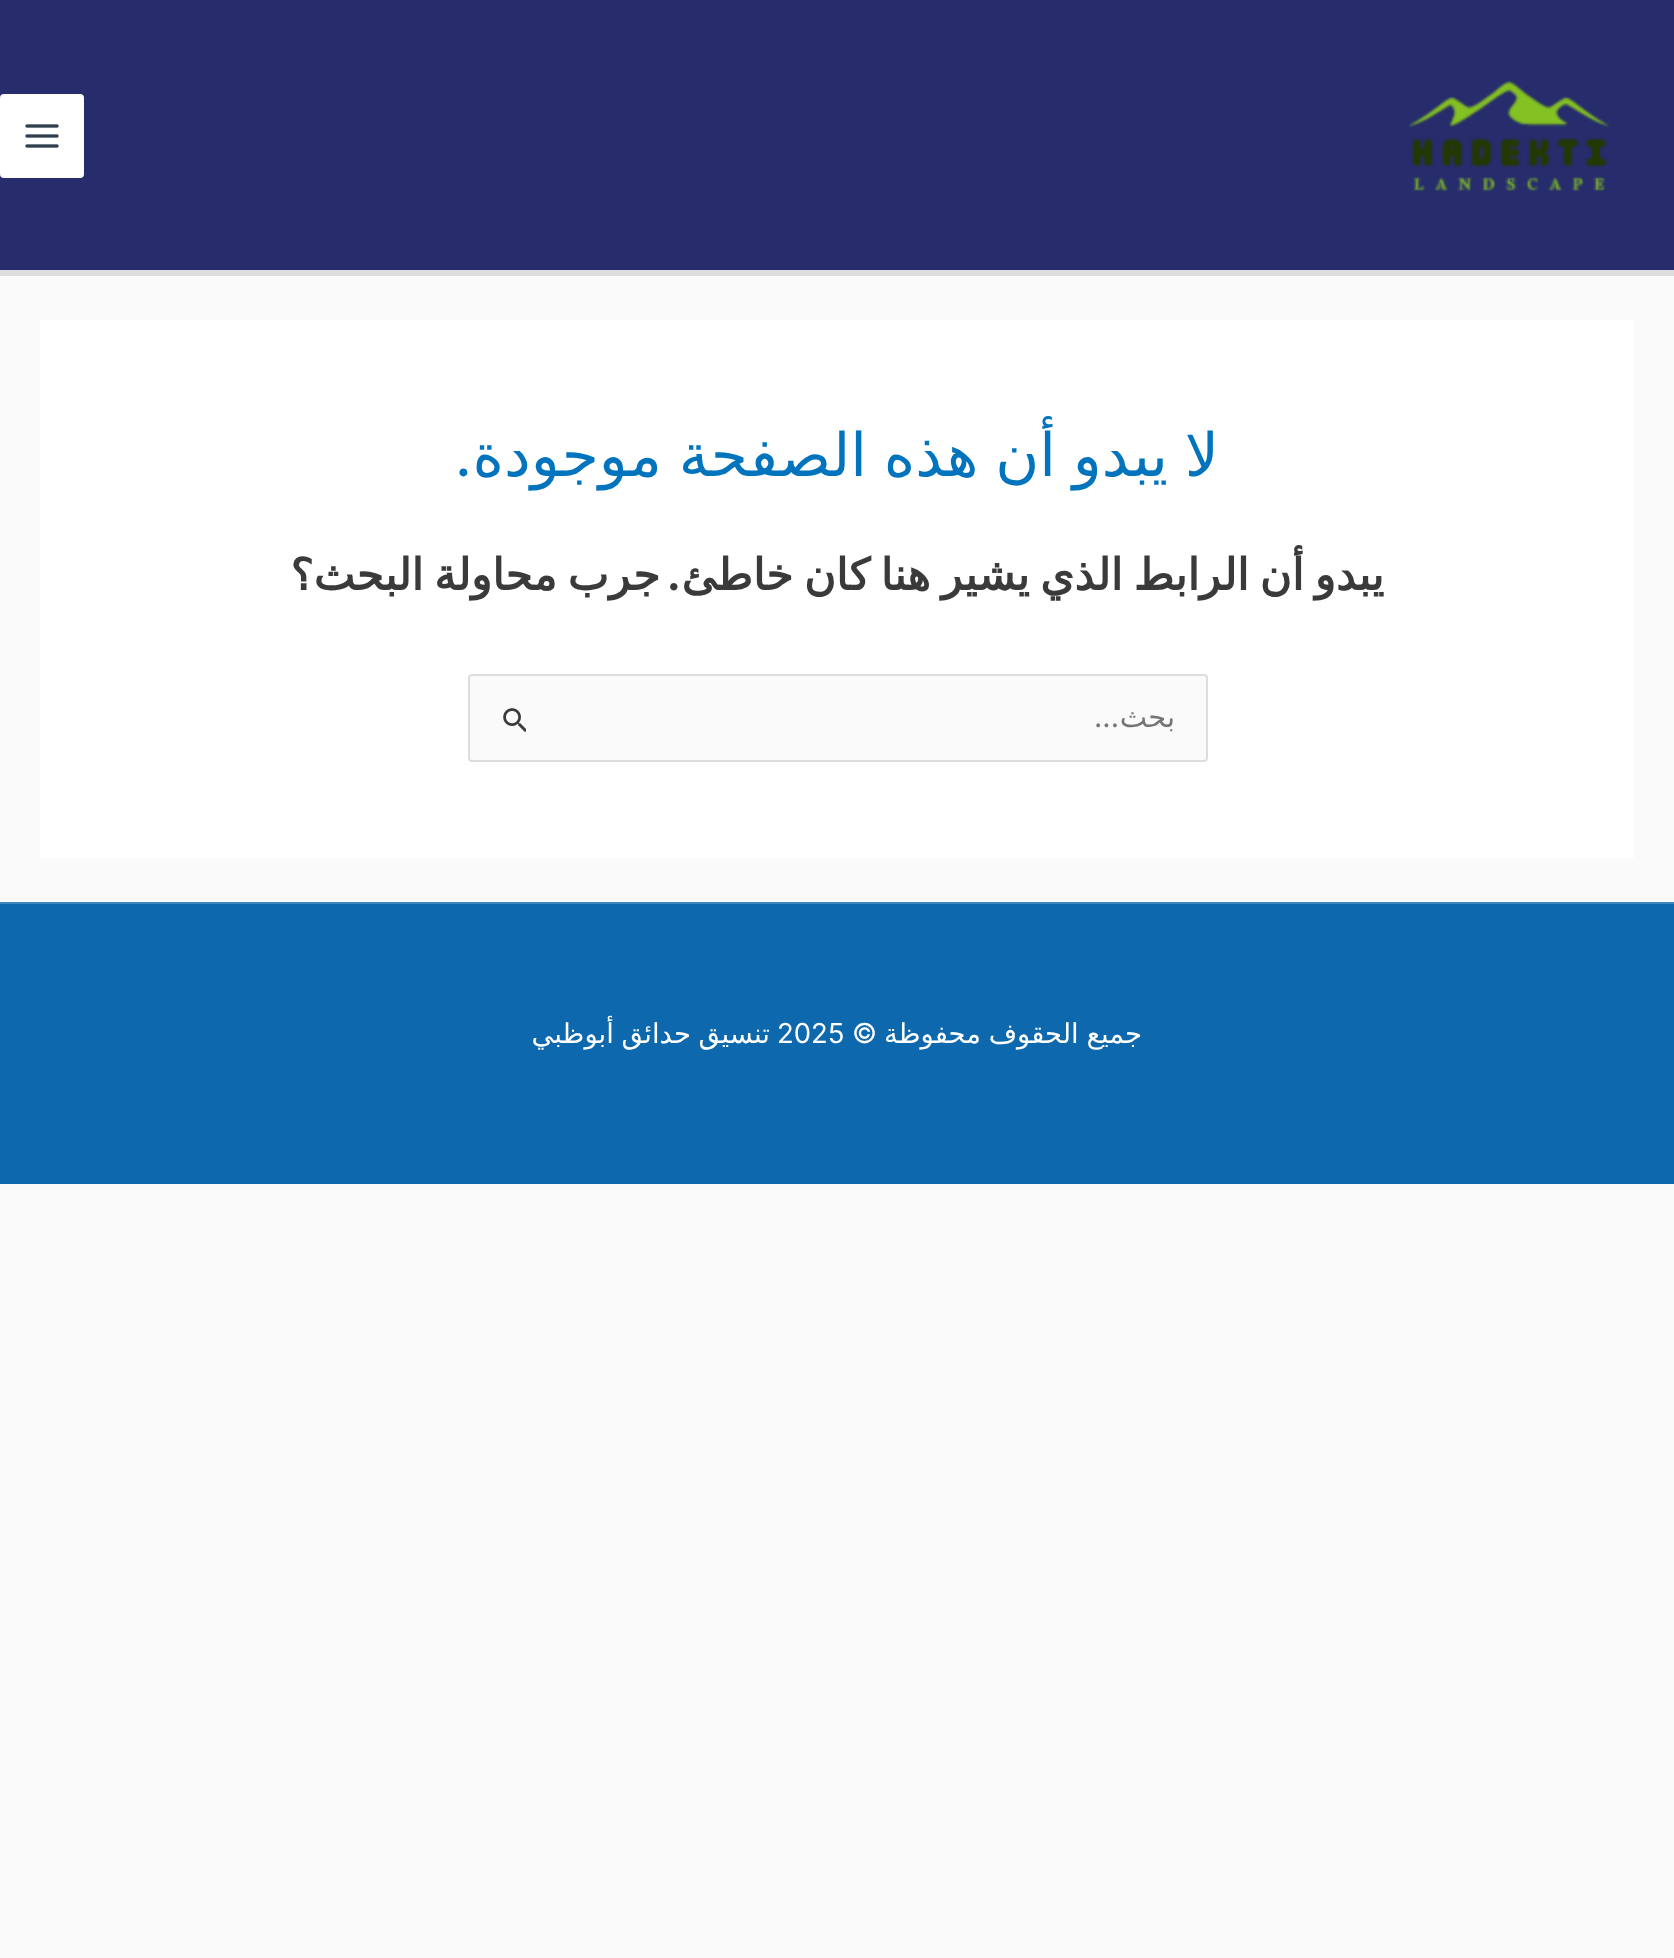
<?xml version="1.0" encoding="UTF-8"?>
<svg xmlns="http://www.w3.org/2000/svg" xmlns:xlink="http://www.w3.org/1999/xlink" width="1674" height="1958">
  <rect width="100%" height="100%" fill="#fafafa" />
  <rect width="1674" height="270" fill="#272c6c" />
  <rect y="270" width="1674" height="6" fill="#dddddd" />
  <image x="1408" y="80" width="201" height="112" xlink:href="image1.png" />
  <rect y="94" width="84" height="84" rx="4" fill="#ffffff" />
  <image x="25" y="124" width="34" height="24" xlink:href="image2.png" />
  <rect x="40" y="320" width="1594" height="538" fill="#ffffff" />
  <rect x="469" y="675" width="738" height="86" rx="3" fill="#fafafa" stroke="#dddddd" stroke-width="2" />
  <image x="503" y="708" width="23" height="24" xlink:href="image3.png" />
  <rect y="904" width="1674" height="280" fill="#0d68ae" />
  <rect y="902" width="1674" height="2" fill="#3d86be" />
  <text x="1219" y="476" word-spacing="-2.25" style="font-family: DejaVu Sans; font-size: 60px; direction: rtl; fill: #0274be">لا يبدو أن هذه الصفحة موجودة</text>
  <text x="472" y="476" style="font-family: Inter; font-size: 60px; direction: rtl; fill: #0274be">.</text>
  <text x="1384" y="590" word-spacing="-3.25" style="font-family: DejaVu Sans; font-size: 43.75px; font-weight: bold; direction: rtl; fill: #3a3a3a">يبدو أن الرابط الذي يشير هنا كان خاطئ</text>
  <text x="681" y="590" style="font-family: Inter; font-size: 43.75px; font-weight: bold; direction: rtl; fill: #3a3a3a">.</text>
  <text x="660" y="590" word-spacing="-3.25" style="font-family: DejaVu Sans; font-size: 43.75px; font-weight: bold; direction: rtl; fill: #3a3a3a">جرب محاولة البحث؟</text>
  <text x="1175" y="727" style="font-family: DejaVu Sans; font-size: 29px; direction: rtl; fill: #757575">بحث</text>
  <text x="1119" y="727" style="font-family: Inter; font-size: 29px; direction: rtl; fill: #757575">...</text>
  <text x="1142" y="1043" word-spacing="-1" style="font-family: DejaVu Sans; font-size: 27.4px; direction: rtl; fill: #ffffff">جميع الحقوف محفوظة</text>
  <text x="877" y="1043" style="font-family: Inter; font-size: 27.4px; direction: rtl; fill: #ffffff">©</text>
  <text x="777" y="1043" style="font-family: Inter; font-size: 27.4px; fill: #ffffff">2025</text>
  <text x="770" y="1043" word-spacing="-1" style="font-family: DejaVu Sans; font-size: 27.4px; direction: rtl; fill: #ffffff">تنسيق حدائق أبوظبي</text>
</svg>
